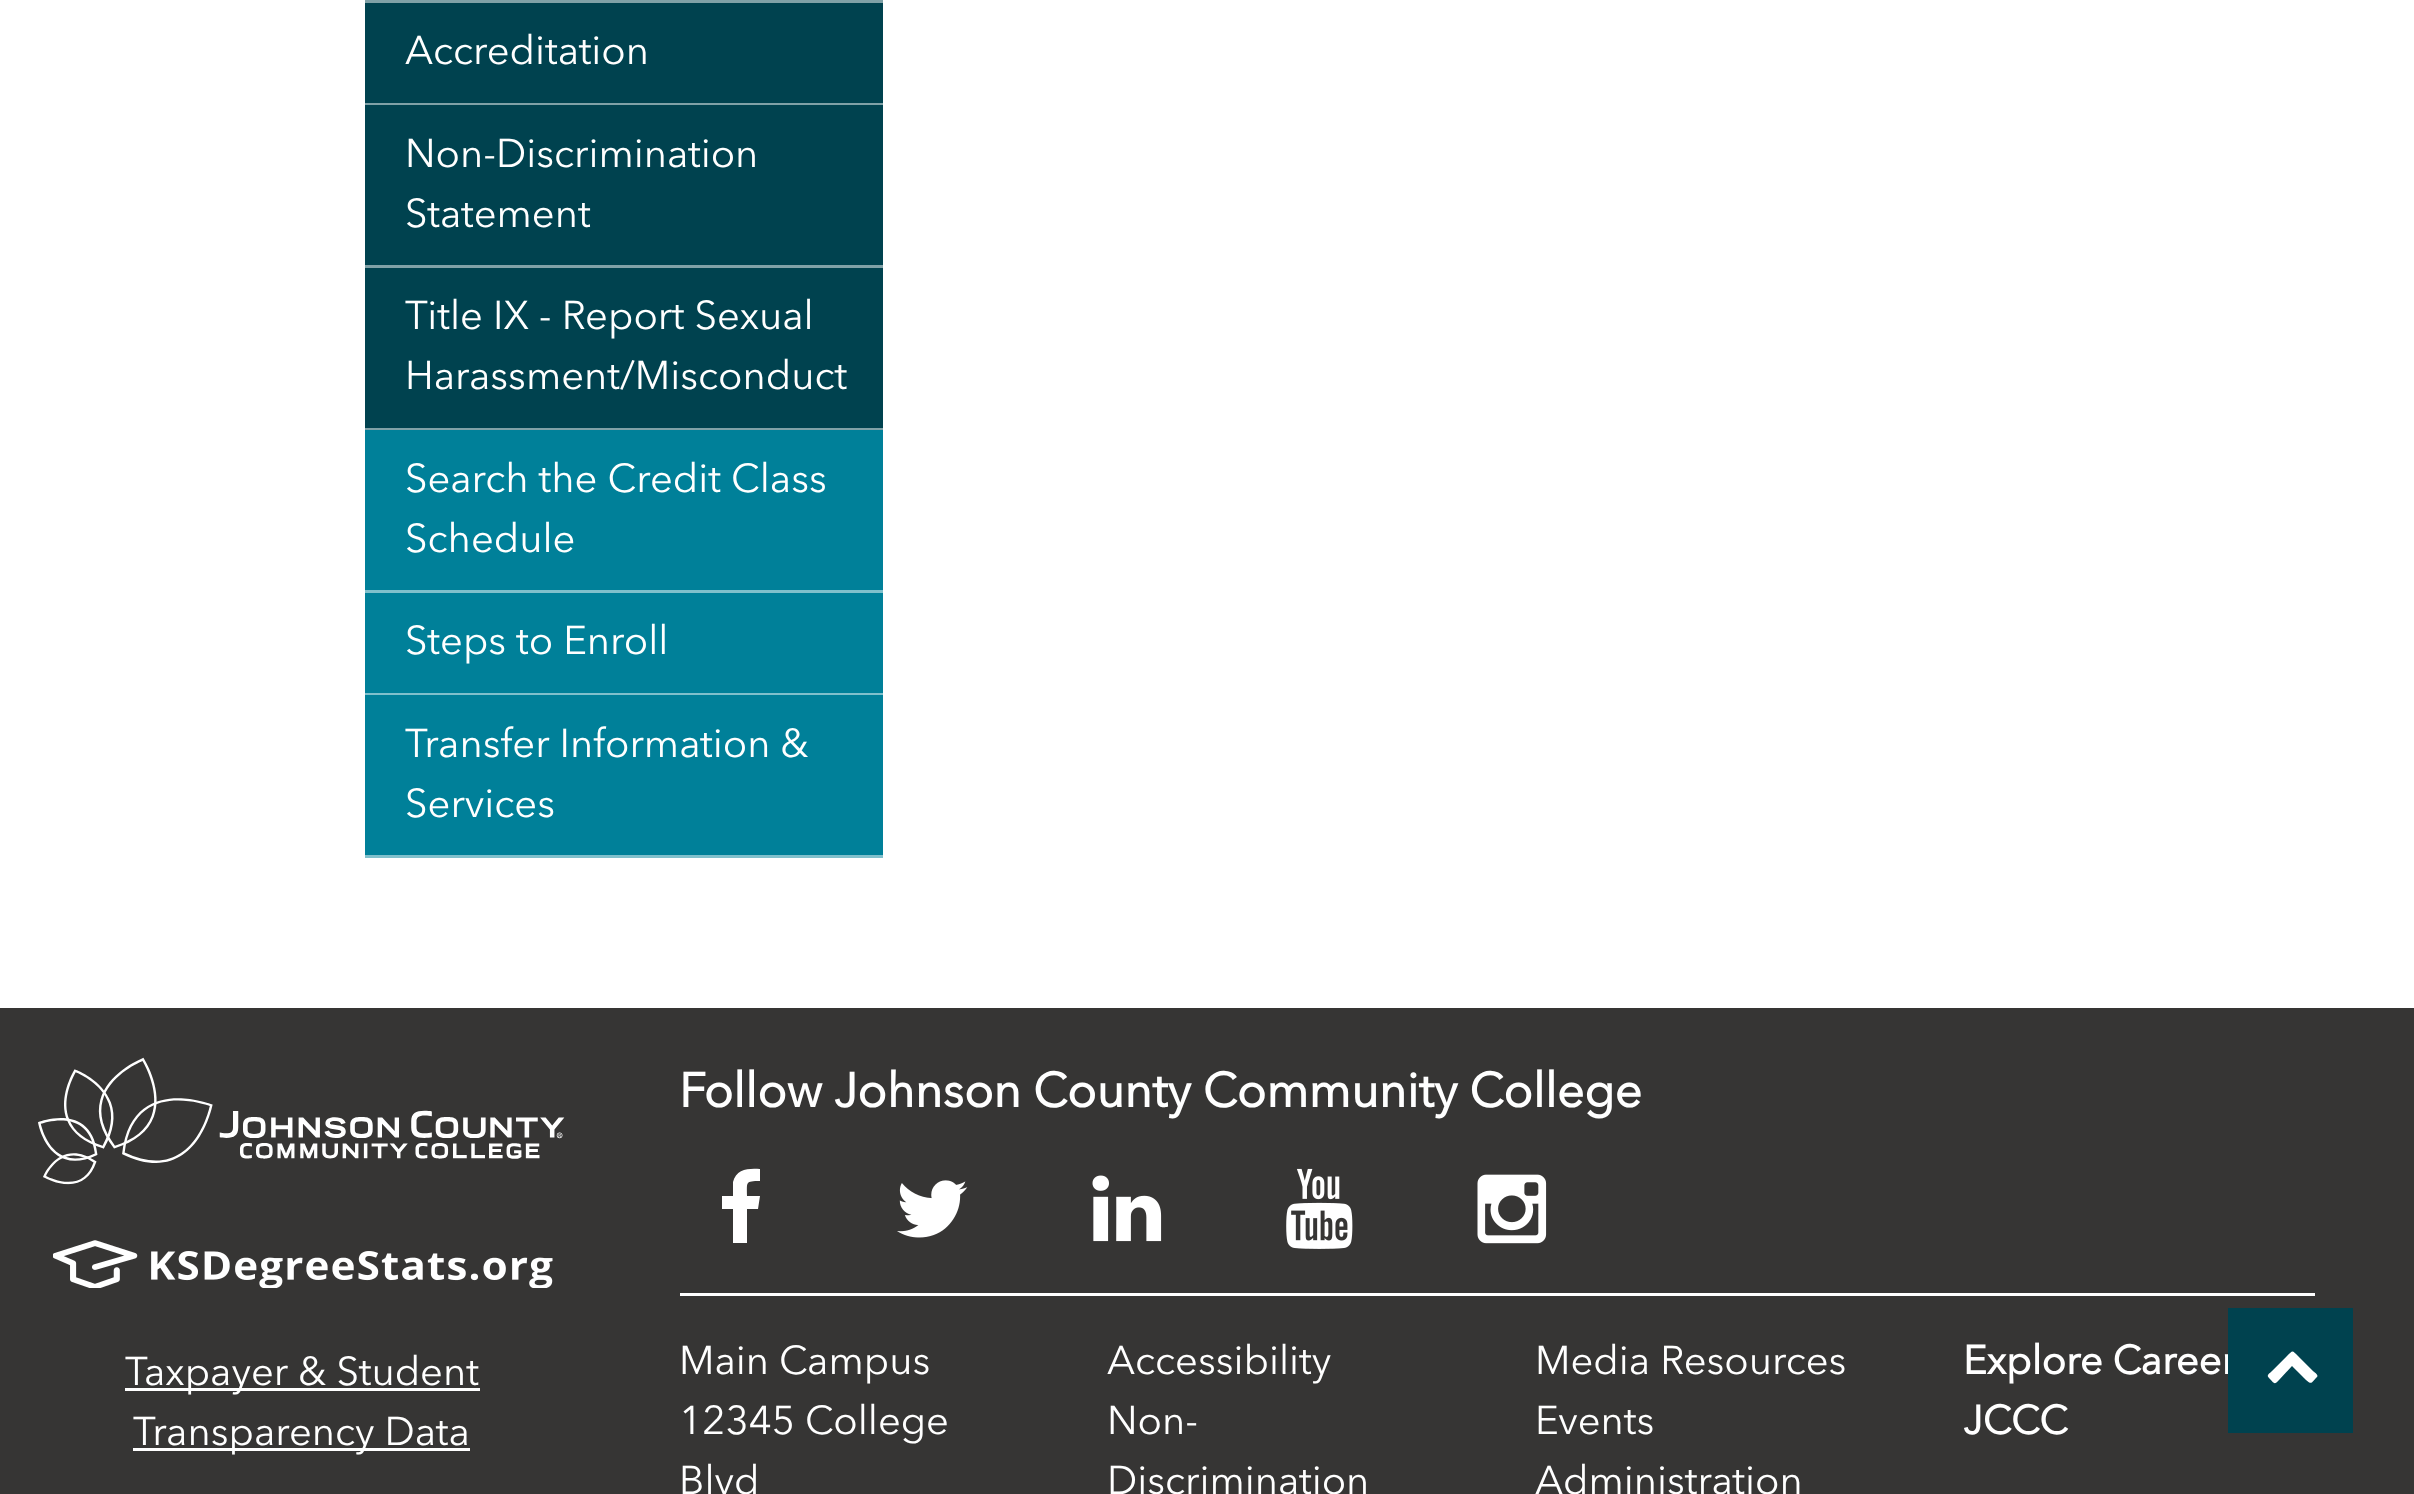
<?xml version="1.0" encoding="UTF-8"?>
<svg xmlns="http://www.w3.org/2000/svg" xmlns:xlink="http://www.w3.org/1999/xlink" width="2414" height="1494">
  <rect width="100%" height="100%" fill="#ffffff" />
  <rect x="365" width="518" height="3" fill="#80a1a7" />
  <rect x="365" y="3" width="518" height="100" fill="#00424f" />
  <rect x="365" y="103" width="518" height="2" fill="#80a1a7" />
  <rect x="365" y="105" width="518" height="160" fill="#00424f" />
  <rect x="365" y="265" width="518" height="3" fill="#80a1a7" />
  <rect x="365" y="268" width="518" height="160" fill="#00424f" />
  <rect x="365" y="428" width="518" height="2" fill="#80a1a7" />
  <rect x="365" y="430" width="518" height="160" fill="#008099" />
  <rect x="365" y="590" width="518" height="3" fill="#80c0cc" />
  <rect x="365" y="593" width="518" height="100" fill="#008099" />
  <rect x="365" y="693" width="518" height="2" fill="#80c0cc" />
  <rect x="365" y="695" width="518" height="160" fill="#008099" />
  <rect x="365" y="855" width="518" height="3" fill="#80c0cc" />
  <rect y="1008" width="2414" height="486" fill="#363534" />
  <image x="38" y="1057" width="527" height="128" xlink:href="image1.png" />
  <image x="53" y="1240" width="500" height="48" xlink:href="image2.png" />
  <rect x="125" y="1388" width="355" height="3" fill="#ffffff" />
  <rect x="133" y="1448" width="337" height="3" fill="#ffffff" />
  <path d="M 760 1169 v 12 c -15 0 -13 1 -13 15 h 13 l -2 13 h -11 v 34 h -14 v -34 h -11 v -13 h 11 v -14 c 3 -13 16 -14 27 -13 z" fill="#ffffff" />
  <image x="897" y="1180" width="71" height="58" xlink:href="image3.png" />
  <image x="1092" y="1175" width="70" height="67" xlink:href="image4.png" />
  <image x="1286" y="1168" width="67" height="81" xlink:href="image5.png" />
  <image x="1477" y="1174" width="70" height="70" xlink:href="image6.png" />
  <rect x="680" y="1293" width="1635" height="3" fill="#ffffff" />
  <text x="405" y="64" style="font-family: 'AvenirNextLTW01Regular'; font-size: 40px; fill: #ffffff">Accreditation</text>
  <text x="405" y="167" style="font-family: 'AvenirNextLTW01Regular'; font-size: 40px; fill: #ffffff">Non-Discrimination</text>
  <text x="405" y="227" style="font-family: 'AvenirNextLTW01Regular'; font-size: 40px; fill: #ffffff">Statement</text>
  <text x="405" y="329" style="font-family: 'AvenirNextLTW01Regular'; font-size: 40px; fill: #ffffff">Title IX - Report Sexual</text>
  <text x="405" y="389" style="font-family: 'AvenirNextLTW01Regular'; font-size: 40px; fill: #ffffff">Harassment/Misconduct</text>
  <text x="405" y="492" style="font-family: 'AvenirNextLTW01Regular'; font-size: 40px; fill: #ffffff">Search the Credit Class</text>
  <text x="405" y="552" style="font-family: 'AvenirNextLTW01Regular'; font-size: 40px; fill: #ffffff">Schedule</text>
  <text x="405" y="654" style="font-family: 'AvenirNextLTW01Regular'; font-size: 40px; fill: #ffffff">Steps to Enroll</text>
  <text x="405" y="757" style="font-family: 'AvenirNextLTW01Regular'; font-size: 40px; fill: #ffffff">Transfer Information &amp;</text>
  <text x="405" y="817" style="font-family: 'AvenirNextLTW01Regular'; font-size: 40px; fill: #ffffff">Services</text>
  <text x="125" y="1385" style="font-family: 'AvenirNextLTW01Regular'; font-size: 40px; fill: #ffffff">Taxpayer &amp; Student</text>
  <text x="133" y="1445" style="font-family: 'AvenirNextLTW01Regular'; font-size: 40px; fill: #ffffff">Transparency Data</text>
  <text x="679" y="1107" style="font-family: 'AvenirNextLTW01Regular'; font-size: 48px; font-weight: bold; fill: #ffffff">Follow Johnson County Community College</text>
  <text x="679" y="1374" style="font-family: 'AvenirNextLTW01Regular'; font-size: 40px; fill: #ffffff">Main Campus</text>
  <text x="679" y="1434" style="font-family: 'AvenirNextLTW01Regular'; font-size: 40px; fill: #ffffff">12345 College</text>
  <text x="679" y="1494" style="font-family: 'AvenirNextLTW01Regular'; font-size: 40px; fill: #ffffff">Blvd</text>
  <text x="1107" y="1374" style="font-family: 'AvenirNextLTW01Regular'; font-size: 40px; fill: #ffffff">Accessibility</text>
  <text x="1107" y="1434" style="font-family: 'AvenirNextLTW01Regular'; font-size: 40px; fill: #ffffff">Non-</text>
  <text x="1107" y="1494" style="font-family: 'AvenirNextLTW01Regular'; font-size: 40px; fill: #ffffff">Discrimination</text>
  <text x="1535" y="1374" style="font-family: 'AvenirNextLTW01Regular'; font-size: 40px; fill: #ffffff">Media Resources</text>
  <text x="1535" y="1434" style="font-family: 'AvenirNextLTW01Regular'; font-size: 40px; fill: #ffffff">Events</text>
  <text x="1535" y="1494" style="font-family: 'AvenirNextLTW01Regular'; font-size: 40px; fill: #ffffff">Administration</text>
  <text x="1963" y="1374" style="font-family: 'AvenirNextLTW01Regular'; font-size: 40px; font-weight: bold; fill: #ffffff">Explore Career</text>
  <text x="1963" y="1434" style="font-family: 'AvenirNextLTW01Regular'; font-size: 40px; font-weight: bold; fill: #ffffff">JCCC</text>
  <rect x="2228" y="1308" width="125" height="125" fill="#00424f" />
  <path d="M 2317 1377 c -6 6 -5 8 -11 3 l -14 -14 l -13 14 c -5 5 -4 4 -10 -2 c -3 -3 0 -4 3 -7 l 15 -15 c 6 -6 5 -6 11 0 l 15 15 c 1 1 6 4 4 6 z" fill="#ffffff" />
</svg>
